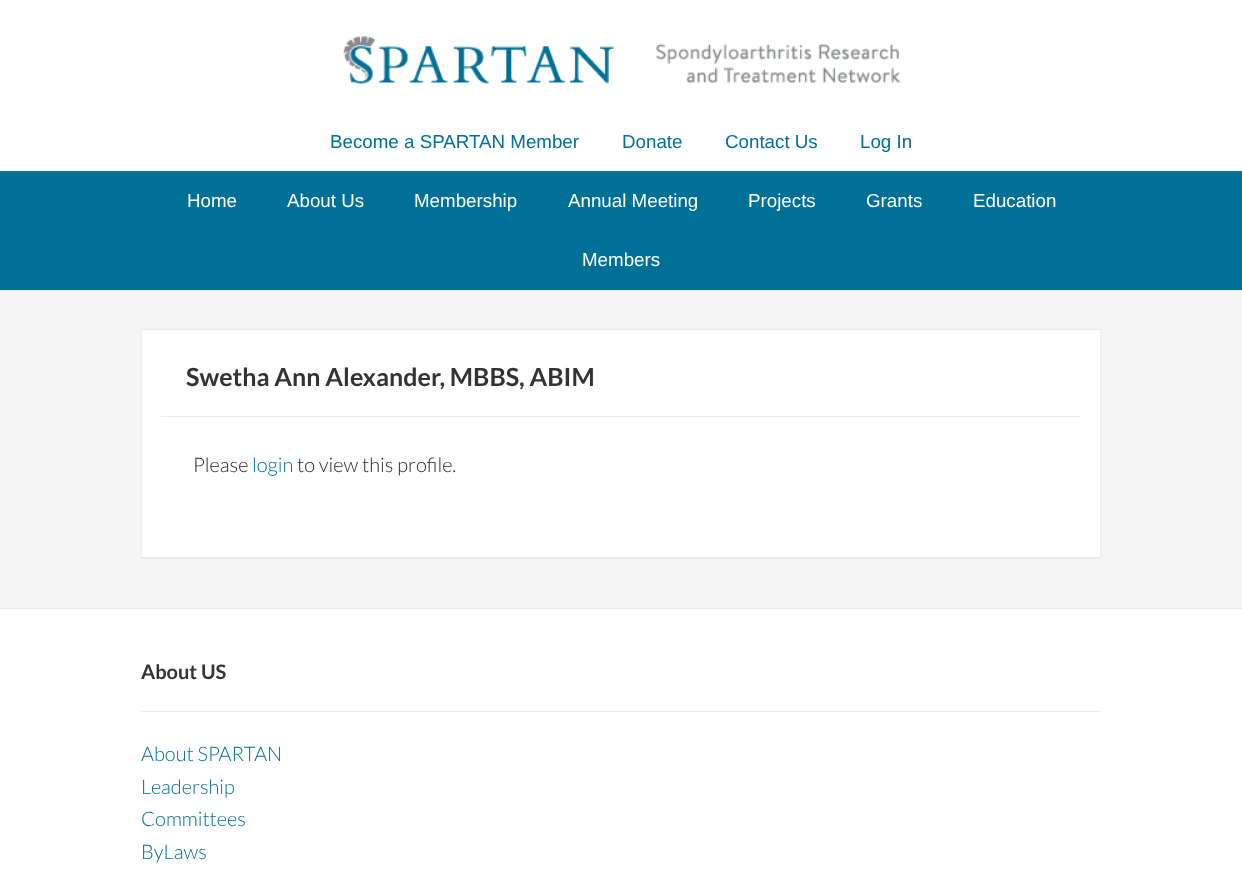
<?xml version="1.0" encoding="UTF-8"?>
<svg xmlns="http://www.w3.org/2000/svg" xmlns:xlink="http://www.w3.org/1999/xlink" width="1242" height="885">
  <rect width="100%" height="100%" fill="#ffffff" />
  <image x="343" y="36" width="558" height="48" xlink:href="image1.png" />
  <rect y="171" width="1242" height="119" fill="#007096" />
  <rect y="291" width="1242" height="317" fill="#f5f5f5" />
  <rect y="290" width="1242" height="1" fill="#ececec" />
  <path d="M 141 330 v 229 h 960 v -1 h -960 z" fill="#ececec" />
  <rect x="141.5" y="329.5" width="959" height="228" fill="#ffffff" stroke="#ececec" />
  <rect x="161" y="416" width="920" height="1" fill="#ececec" />
  <rect y="608" width="1242" height="1" fill="#ececec" />
  <rect x="141" y="711" width="960" height="1" fill="#ececec" />
  <text x="330" y="148" style="font-family: Liberation Sans; font-size: 18.75px; fill: #007096">Become a SPARTAN Member</text>
  <text x="622" y="148" style="font-family: Liberation Sans; font-size: 18.75px; fill: #007096">Donate</text>
  <text x="725" y="148" style="font-family: Liberation Sans; font-size: 18.75px; fill: #007096">Contact Us</text>
  <text x="860" y="148" style="font-family: Liberation Sans; font-size: 18.75px; fill: #007096">Log In</text>
  <text x="187" y="207" style="font-family: Liberation Sans; font-size: 18.75px; fill: #ffffff">Home</text>
  <text x="287" y="207" style="font-family: Liberation Sans; font-size: 18.75px; fill: #ffffff">About Us</text>
  <text x="414" y="207" style="font-family: Liberation Sans; font-size: 18.75px; fill: #ffffff">Membership</text>
  <text x="568" y="207" style="font-family: Liberation Sans; font-size: 18.75px; fill: #ffffff">Annual Meeting</text>
  <text x="748" y="207" style="font-family: Liberation Sans; font-size: 18.75px; fill: #ffffff">Projects</text>
  <text x="866" y="207" style="font-family: Liberation Sans; font-size: 18.75px; fill: #ffffff">Grants</text>
  <text x="973" y="207" style="font-family: Liberation Sans; font-size: 18.75px; fill: #ffffff">Education</text>
  <text x="582" y="266" style="font-family: Liberation Sans; font-size: 18.75px; fill: #ffffff">Members</text>
  <text x="186" y="386" style="font-family: Lato; font-size: 25px; font-weight: bold; fill: #333333">Swetha Ann Alexander, MBBS, ABIM</text>
  <text x="193" y="472" style="font-family: Lato; font-size: 20px; font-weight: 300; fill: #262626">Please</text>
  <text x="252" y="472" style="font-family: Lato; font-size: 20px; font-weight: 300; fill: #007096">login</text>
  <text x="297" y="472" style="font-family: Lato; font-size: 20px; font-weight: 300; fill: #262626">to view this profile.</text>
  <text x="141" y="679" style="font-family: Lato; font-size: 20px; font-weight: bold; fill: #333333">About US</text>
  <text x="141" y="761" style="font-family: Lato; font-size: 20px; font-weight: 300; fill: #007096">About SPARTAN</text>
  <text x="141" y="794" style="font-family: Lato; font-size: 20px; font-weight: 300; fill: #007096">Leadership</text>
  <text x="141" y="826" style="font-family: Lato; font-size: 20px; font-weight: 300; fill: #007096">Committees</text>
  <text x="141" y="859" style="font-family: Lato; font-size: 20px; font-weight: 300; fill: #007096">ByLaws</text>
</svg>
